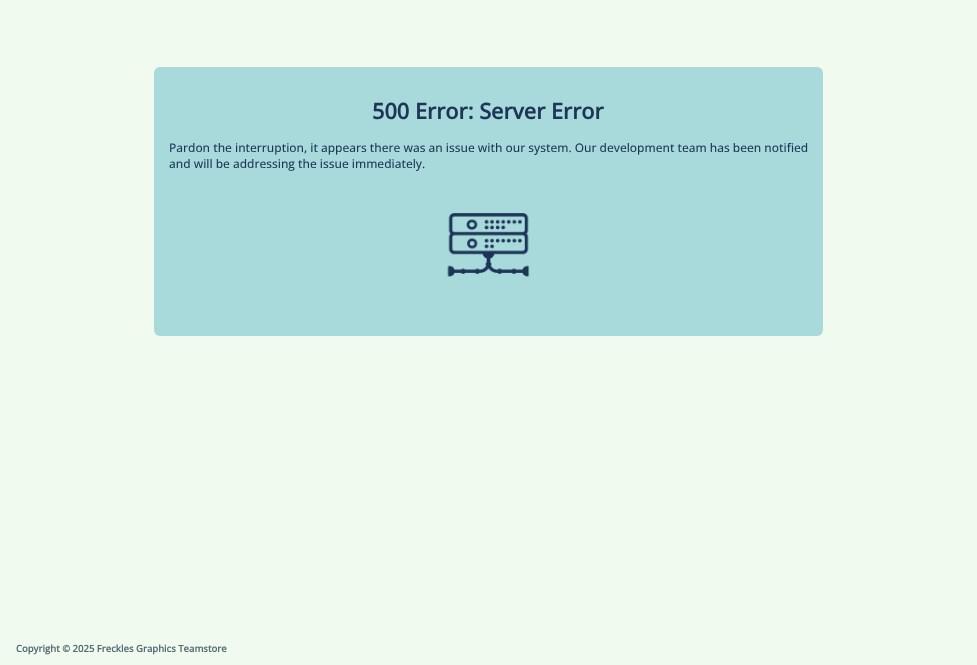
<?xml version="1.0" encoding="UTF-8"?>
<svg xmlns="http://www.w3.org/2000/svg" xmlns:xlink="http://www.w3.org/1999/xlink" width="977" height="665">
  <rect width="100%" height="100%" fill="#f1faee" />
  <rect x="154" y="67" width="669" height="269" rx="6" fill="#a8dadc" />
  <image x="447" y="213" width="83" height="64" xlink:href="image1.png" />
  <text x="372" y="119" style="font-family: Open Sans; font-size: 21.75px; font-weight: bold; fill: #1d3557">500 Error: Server Error</text>
  <text x="169" y="152" style="font-family: Open Sans; font-size: 11.93px; font-weight: 500; fill: #1d3557">Pardon the interruption, it appears there was an issue with our system. Our development team has been notified</text>
  <text x="169" y="168" style="font-family: Open Sans; font-size: 11.93px; font-weight: 500; fill: #1d3557">and will be addressing the issue immediately.</text>
  <text x="16" y="652" style="font-family: Open Sans; font-size: 9.5px; font-weight: bold; fill: #566c76">Copyright © 2025 Freckles Graphics Teamstore</text>
</svg>
